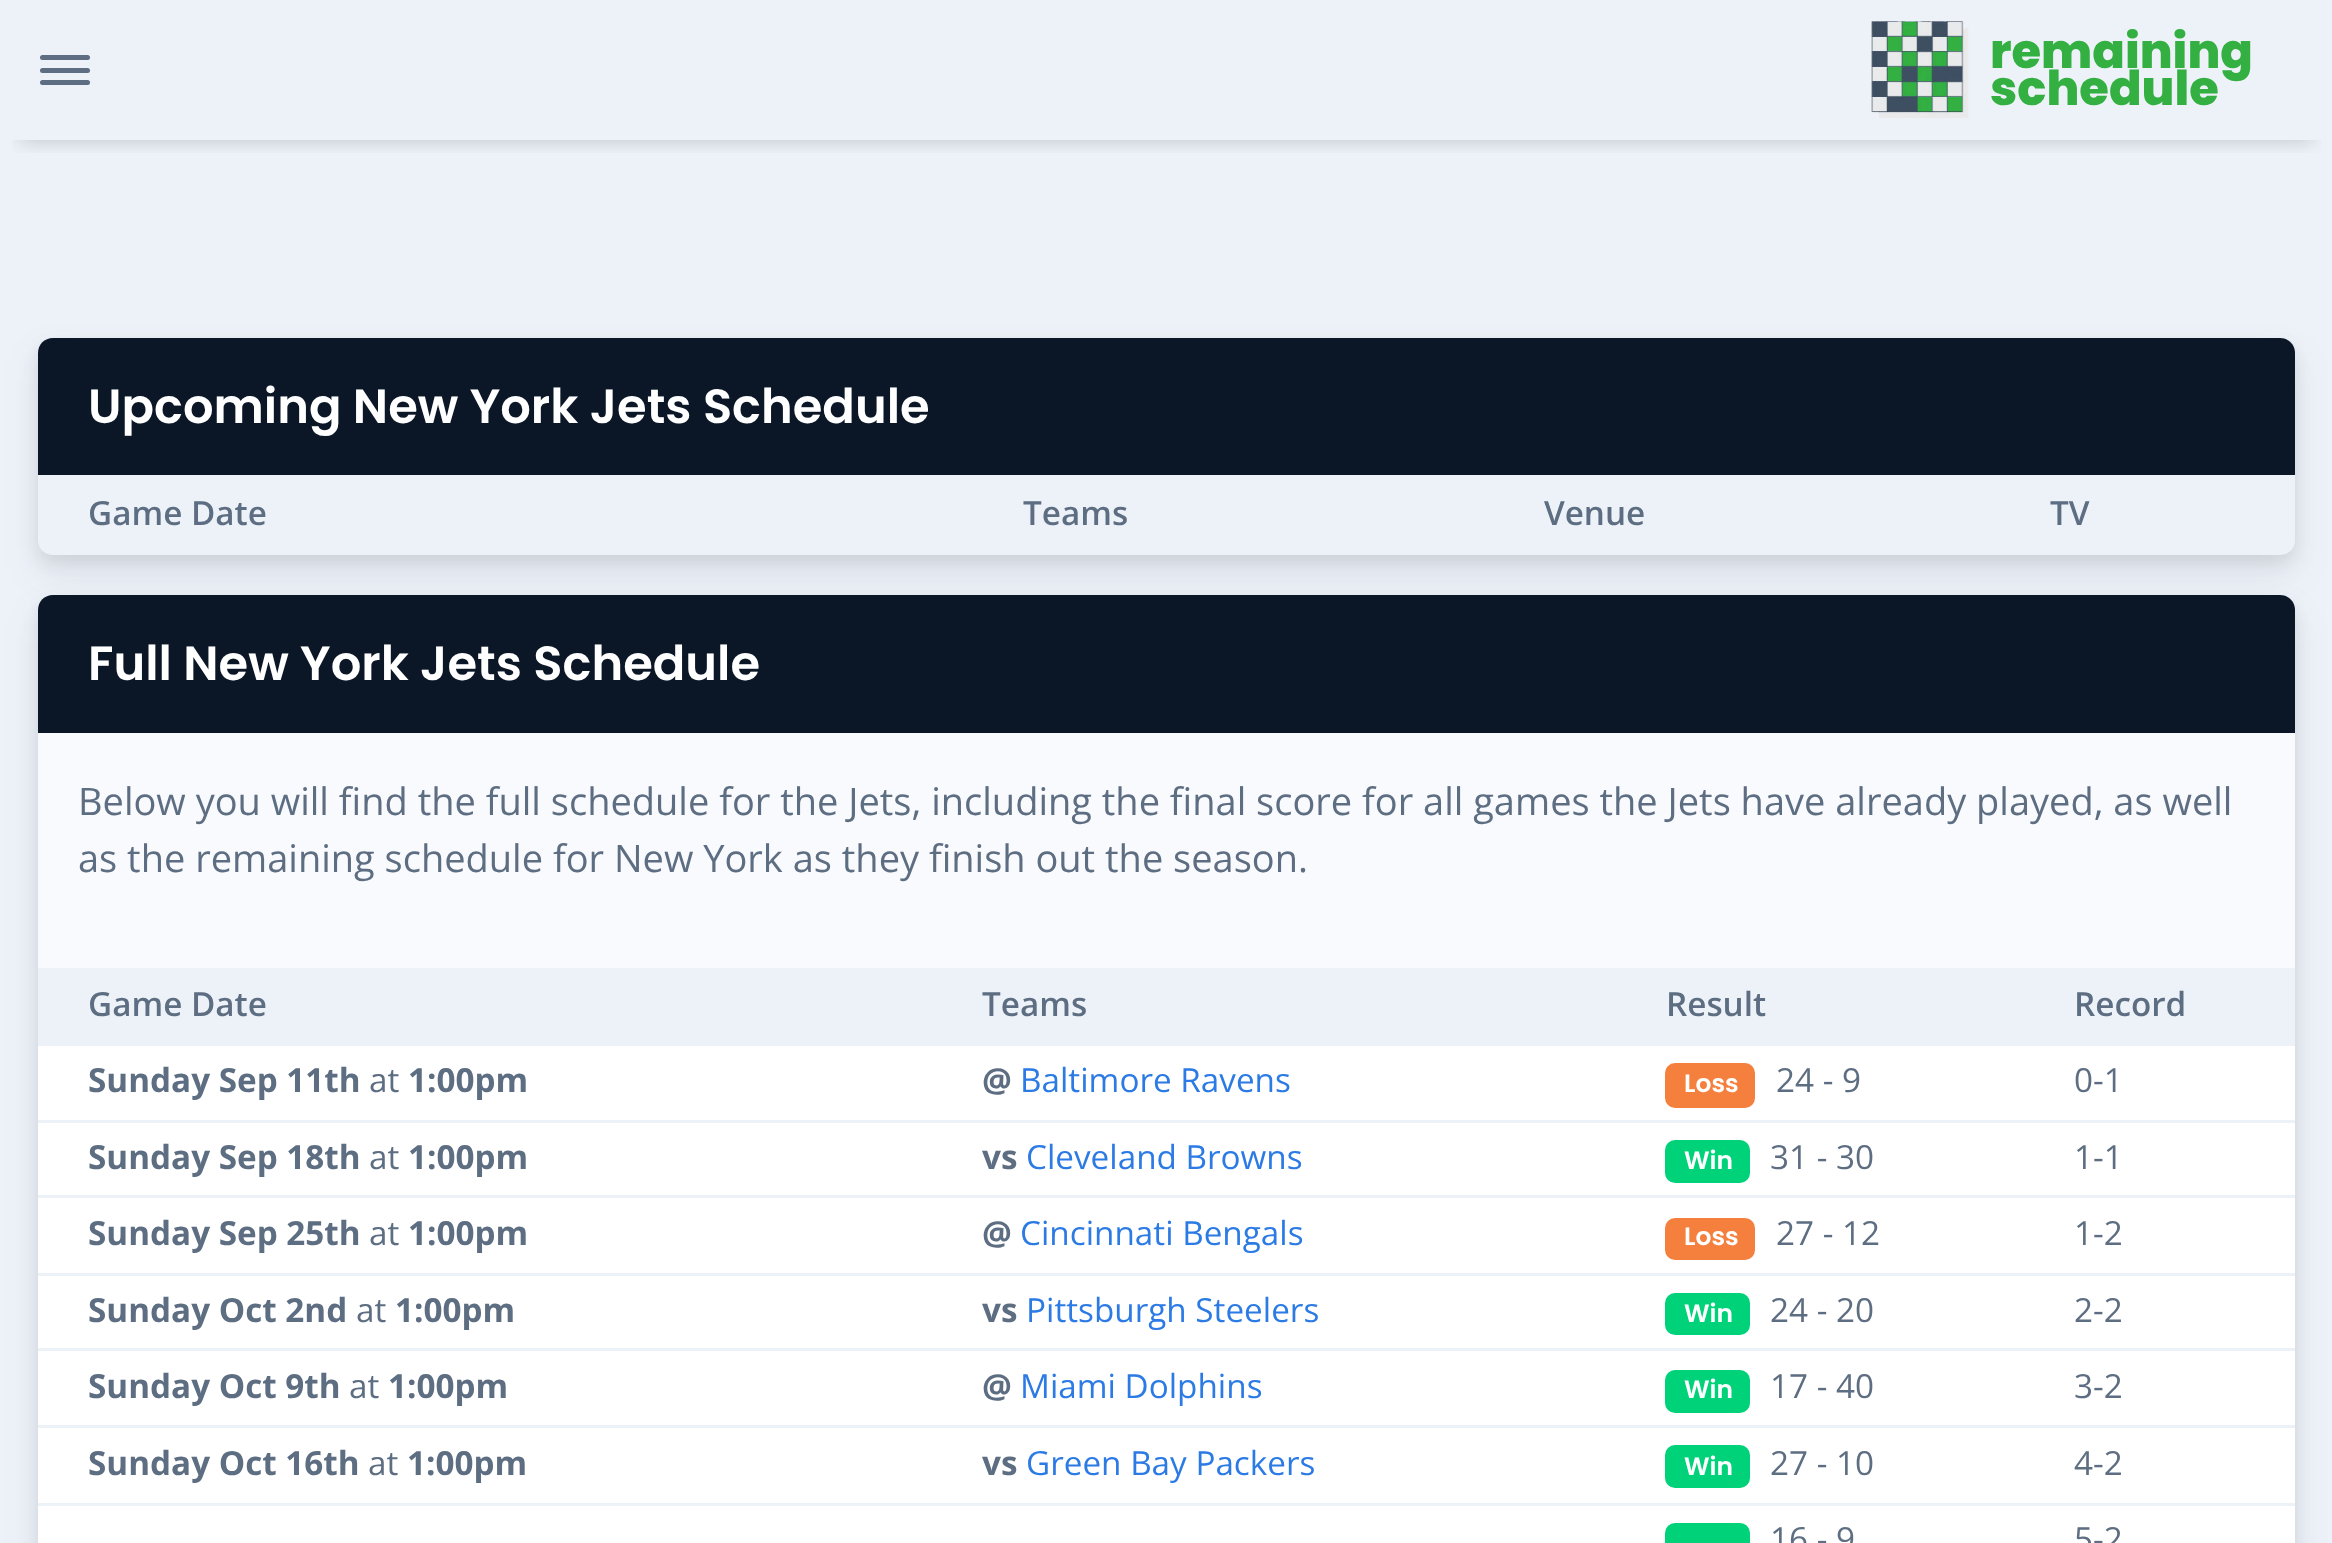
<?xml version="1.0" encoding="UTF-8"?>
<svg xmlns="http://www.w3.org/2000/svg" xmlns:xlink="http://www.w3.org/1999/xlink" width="2332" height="1543">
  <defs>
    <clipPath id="clip1"><rect x="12" y="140" width="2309" height="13" /></clipPath>
    <clipPath id="clip2"><path d="M 38 475 h 2257 v 65 c 0 8.5 -6.5 15 -15 15 h -2227 c -8.5 0 -15 -6.5 -15 -15 z" /></clipPath>
  </defs>
  <rect width="100%" height="100%" fill="#edf2f9" />
  <g clip-path="url(#clip1)">
    <rect x="20" y="40" width="2293" height="100" fill="#000000" fill-opacity="0.2" filter="blur(10px)" />
  </g>
  <rect x="40" y="55" width="50" height="5" rx="2.5" fill="#5e6e82" />
  <rect x="40" y="68" width="50" height="5" rx="2.5" fill="#5e6e82" />
  <rect x="40" y="80" width="50" height="5" rx="2.5" fill="#5e6e82" />
  <image x="1871" y="21" width="98" height="97" xlink:href="image1.png" />
  <rect x="38" y="345" width="2257" height="218" rx="15" fill="#000000" fill-opacity="0.07" filter="blur(7.5px)" />
  <rect x="38" y="355" width="2257" height="218" rx="15" fill="#414558" fill-opacity="0.1" filter="blur(17.5px)" />
  <path d="M 53 338 h 2227 c 8.5 0 15 6.5 15 15 v 122 h -2257 v -122 c 0 -8.5 6.5 -15 15 -15 z" fill="#0b1727" />
  <g clip-path="url(#clip2)">
    <rect x="38" y="478" width="2257" height="75" fill="#edf2f9" />
    <rect x="2038" y="553" width="257" height="2" fill="#edf2f9" />
  </g>
  <rect x="1010" y="553" width="1030" height="2" fill="#edf2f9" />
  <g clip-path="url(#clip2)">
    <rect x="38" y="553" width="975" height="2" fill="#edf2f9" />
  </g>
  <rect x="38" y="475" width="2257" height="3" fill="#edf2f9" />
  <rect x="38" y="603" width="2257" height="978" rx="15" fill="#000000" fill-opacity="0.07" filter="blur(7.5px)" />
  <rect x="38" y="613" width="2257" height="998" rx="15" fill="#414558" fill-opacity="0.1" filter="blur(17.5px)" />
  <path d="M 53 595 h 2227 c 8.5 0 15 6.5 15 15 v 123 h -2257 v -123 c 0 -8.5 6.5 -15 15 -15 z" fill="#0b1727" />
  <rect x="38" y="733" width="2257" height="235" fill="#f9fafd" />
  <rect x="38" y="968" width="2257" height="75" fill="#edf2f9" />
  <rect x="38" y="1046" width="2257" height="497" fill="#ffffff" />
  <rect x="1665" y="1063" width="90" height="45" rx="10" fill="#f5803e" />
  <rect x="38" y="1043" width="2257" height="3" fill="#edf2f9" />
  <rect x="1665" y="1140" width="85" height="43" rx="10" fill="#00d27a" />
  <rect x="38" y="1120" width="2257" height="3" fill="#edf2f9" />
  <rect x="1665" y="1218" width="90" height="42" rx="10" fill="#f5803e" />
  <rect x="38" y="1195" width="2257" height="3" fill="#edf2f9" />
  <rect x="1665" y="1293" width="85" height="42" rx="10" fill="#00d27a" />
  <rect x="38" y="1273" width="2257" height="3" fill="#edf2f9" />
  <rect x="1665" y="1370" width="85" height="43" rx="10" fill="#00d27a" />
  <rect x="38" y="1348" width="2257" height="3" fill="#edf2f9" />
  <rect x="1665" y="1445" width="85" height="43" rx="10" fill="#00d27a" />
  <rect x="38" y="1425" width="2257" height="3" fill="#edf2f9" />
  <rect x="1665" y="1523" width="85" height="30" rx="10" fill="#00d27a" />
  <rect x="38" y="1503" width="2257" height="3" fill="#edf2f9" />
  <text x="1990" y="68" style="font-family: Poppins; font-size: 48px; font-weight: 800; fill: #33b041">remaining</text>
  <text x="1990" y="105" style="font-family: Poppins; font-size: 48px; font-weight: 800; fill: #33b041">schedule</text>
  <text x="88" y="423" style="font-family: Poppins; font-size: 48px; font-weight: 600; fill: #ffffff">Upcoming New York Jets Schedule</text>
  <text x="88" y="525" style="font-family: Open Sans; font-size: 33.25px; font-weight: 600; fill: #5e6e82">Game Date</text>
  <text x="1023" y="525" style="font-family: Open Sans; font-size: 33.25px; font-weight: 600; fill: #5e6e82">Teams</text>
  <text x="1544" y="525" style="font-family: Open Sans; font-size: 33.25px; font-weight: 600; fill: #5e6e82">Venue</text>
  <text x="2050" y="525" style="font-family: Open Sans; font-size: 33.25px; font-weight: 600; fill: #5e6e82">TV</text>
  <text x="88" y="680" style="font-family: Poppins; font-size: 48px; font-weight: 600; fill: #ffffff">Full New York Jets Schedule</text>
  <text x="78" y="815" style="font-family: Open Sans; font-size: 38px; fill: #5e6e82">Below you will find the full schedule for the Jets, including the final score for all games the Jets have already played, as well</text>
  <text x="78" y="872" style="font-family: Open Sans; font-size: 38px; fill: #5e6e82">as the remaining schedule for New York as they finish out the season.</text>
  <text x="88" y="1016" style="font-family: Open Sans; font-size: 33.25px; font-weight: 600; fill: #5e6e82">Game Date</text>
  <text x="982" y="1016" style="font-family: Open Sans; font-size: 33.25px; font-weight: 600; fill: #5e6e82">Teams</text>
  <text x="1666" y="1016" style="font-family: Open Sans; font-size: 33.25px; font-weight: 600; fill: #5e6e82">Result</text>
  <text x="2074" y="1016" style="font-family: Open Sans; font-size: 33.25px; font-weight: 600; fill: #5e6e82">Record</text>
  <text x="88" y="1092" style="font-family: Open Sans; font-size: 33.25px; font-weight: bold; fill: #5e6e82">Sunday Sep 11th</text>
  <text x="369" y="1092" style="font-family: Open Sans; font-size: 33.25px; fill: #5e6e82">at</text>
  <text x="408" y="1092" style="font-family: Open Sans; font-size: 33.25px; font-weight: bold; fill: #5e6e82">1:00pm</text>
  <text x="982" y="1092" style="font-family: Open Sans; font-size: 33.25px; font-weight: bold; fill: #5e6e82">@</text>
  <text x="1020" y="1092" style="font-family: Open Sans; font-size: 33.25px; fill: #2c7be5">Baltimore Ravens</text>
  <text x="1684" y="1092" style="font-family: Poppins; font-size: 25px; font-weight: 600; fill: #ffffff">Loss</text>
  <text x="1776" y="1092" style="font-family: Open Sans; font-size: 33.25px; fill: #5e6e82">24 - 9</text>
  <text x="2074" y="1092" style="font-family: Open Sans; font-size: 33.25px; fill: #5e6e82">0-1</text>
  <text x="88" y="1169" style="font-family: Open Sans; font-size: 33.25px; font-weight: bold; fill: #5e6e82">Sunday Sep 18th</text>
  <text x="369" y="1169" style="font-family: Open Sans; font-size: 33.25px; fill: #5e6e82">at</text>
  <text x="408" y="1169" style="font-family: Open Sans; font-size: 33.25px; font-weight: bold; fill: #5e6e82">1:00pm</text>
  <text x="982" y="1169" style="font-family: Open Sans; font-size: 33.25px; font-weight: bold; fill: #5e6e82">vs</text>
  <text x="1026" y="1169" style="font-family: Open Sans; font-size: 33.25px; fill: #2c7be5">Cleveland Browns</text>
  <text x="1684" y="1169" style="font-family: Poppins; font-size: 25px; font-weight: 600; fill: #ffffff">Win</text>
  <text x="1770" y="1169" style="font-family: Open Sans; font-size: 33.25px; fill: #5e6e82">31 - 30</text>
  <text x="2074" y="1169" style="font-family: Open Sans; font-size: 33.25px; fill: #5e6e82">1-1</text>
  <text x="88" y="1245" style="font-family: Open Sans; font-size: 33.25px; font-weight: bold; fill: #5e6e82">Sunday Sep 25th</text>
  <text x="369" y="1245" style="font-family: Open Sans; font-size: 33.25px; fill: #5e6e82">at</text>
  <text x="408" y="1245" style="font-family: Open Sans; font-size: 33.25px; font-weight: bold; fill: #5e6e82">1:00pm</text>
  <text x="982" y="1245" style="font-family: Open Sans; font-size: 33.25px; font-weight: bold; fill: #5e6e82">@</text>
  <text x="1020" y="1245" style="font-family: Open Sans; font-size: 33.25px; fill: #2c7be5">Cincinnati Bengals</text>
  <text x="1684" y="1245" style="font-family: Poppins; font-size: 25px; font-weight: 600; fill: #ffffff">Loss</text>
  <text x="1776" y="1245" style="font-family: Open Sans; font-size: 33.25px; fill: #5e6e82">27 - 12</text>
  <text x="2074" y="1245" style="font-family: Open Sans; font-size: 33.25px; fill: #5e6e82">1-2</text>
  <text x="88" y="1322" style="font-family: Open Sans; font-size: 33.25px; font-weight: bold; fill: #5e6e82">Sunday Oct 2nd</text>
  <text x="356" y="1322" style="font-family: Open Sans; font-size: 33.25px; fill: #5e6e82">at</text>
  <text x="395" y="1322" style="font-family: Open Sans; font-size: 33.25px; font-weight: bold; fill: #5e6e82">1:00pm</text>
  <text x="982" y="1322" style="font-family: Open Sans; font-size: 33.25px; font-weight: bold; fill: #5e6e82">vs</text>
  <text x="1026" y="1322" style="font-family: Open Sans; font-size: 33.25px; fill: #2c7be5">Pittsburgh Steelers</text>
  <text x="1684" y="1322" style="font-family: Poppins; font-size: 25px; font-weight: 600; fill: #ffffff">Win</text>
  <text x="1770" y="1322" style="font-family: Open Sans; font-size: 33.25px; fill: #5e6e82">24 - 20</text>
  <text x="2074" y="1322" style="font-family: Open Sans; font-size: 33.25px; fill: #5e6e82">2-2</text>
  <text x="88" y="1398" style="font-family: Open Sans; font-size: 33.25px; font-weight: bold; fill: #5e6e82">Sunday Oct 9th</text>
  <text x="349" y="1398" style="font-family: Open Sans; font-size: 33.25px; fill: #5e6e82">at</text>
  <text x="388" y="1398" style="font-family: Open Sans; font-size: 33.25px; font-weight: bold; fill: #5e6e82">1:00pm</text>
  <text x="982" y="1398" style="font-family: Open Sans; font-size: 33.25px; font-weight: bold; fill: #5e6e82">@</text>
  <text x="1020" y="1398" style="font-family: Open Sans; font-size: 33.25px; fill: #2c7be5">Miami Dolphins</text>
  <text x="1684" y="1398" style="font-family: Poppins; font-size: 25px; font-weight: 600; fill: #ffffff">Win</text>
  <text x="1770" y="1398" style="font-family: Open Sans; font-size: 33.25px; fill: #5e6e82">17 - 40</text>
  <text x="2074" y="1398" style="font-family: Open Sans; font-size: 33.25px; fill: #5e6e82">3-2</text>
  <text x="88" y="1475" style="font-family: Open Sans; font-size: 33.25px; font-weight: bold; fill: #5e6e82">Sunday Oct 16th</text>
  <text x="368" y="1475" style="font-family: Open Sans; font-size: 33.25px; fill: #5e6e82">at</text>
  <text x="407" y="1475" style="font-family: Open Sans; font-size: 33.25px; font-weight: bold; fill: #5e6e82">1:00pm</text>
  <text x="982" y="1475" style="font-family: Open Sans; font-size: 33.25px; font-weight: bold; fill: #5e6e82">vs</text>
  <text x="1026" y="1475" style="font-family: Open Sans; font-size: 33.25px; fill: #2c7be5">Green Bay Packers</text>
  <text x="1684" y="1475" style="font-family: Poppins; font-size: 25px; font-weight: 600; fill: #ffffff">Win</text>
  <text x="1770" y="1475" style="font-family: Open Sans; font-size: 33.25px; fill: #5e6e82">27 - 10</text>
  <text x="2074" y="1475" style="font-family: Open Sans; font-size: 33.25px; fill: #5e6e82">4-2</text>
  <text x="1770" y="1551" style="font-family: Open Sans; font-size: 33.25px; fill: #5e6e82">16 - 9</text>
  <text x="2074" y="1551" style="font-family: Open Sans; font-size: 33.25px; fill: #5e6e82">5-2</text>
</svg>
